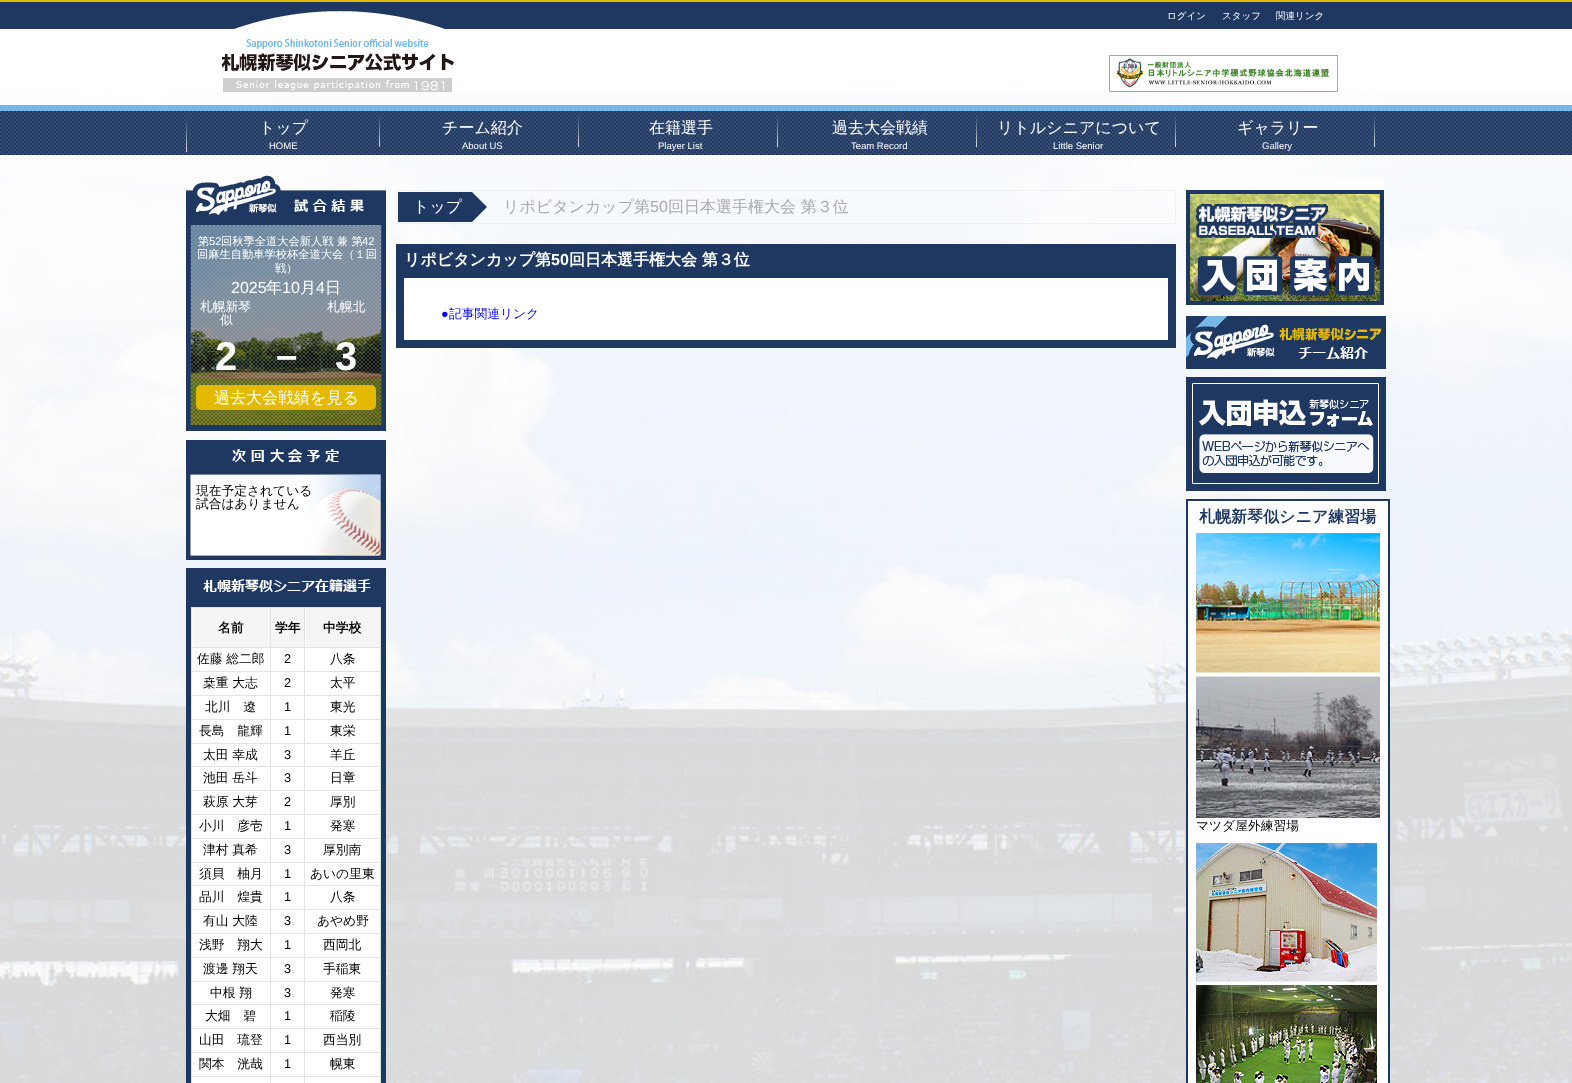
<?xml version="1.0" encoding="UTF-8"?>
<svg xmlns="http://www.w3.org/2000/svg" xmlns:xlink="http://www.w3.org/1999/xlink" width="1572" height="1083">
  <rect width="100%" height="100%" fill="#ffffff" />
  <image x="0" y="91" width="1572" height="992" xlink:href="image1.png" />
  <rect width="1572" height="2" fill="#e4ba00" />
  <rect y="2" width="1572" height="27" fill="#1f3862" />
  <rect x="186" y="11" width="307" height="18" fill="#ffffff" />
  <image x="186" y="2" width="307" height="27" xlink:href="image2.png" />
  <image x="221" y="39" width="233" height="53" xlink:href="image3.png" />
  <image x="1109" y="55" width="229" height="37" xlink:href="image4.png" />
  <image x="0" y="111" width="1572" height="44" xlink:href="image5.png" />
  <rect y="105" width="1572" height="6" fill="#76b9e7" />
  <image x="186" y="119" width="1" height="33" xlink:href="image6.png" />
  <image x="379" y="114" width="1" height="33" xlink:href="image7.png" />
  <image x="578" y="114" width="1" height="33" xlink:href="image8.png" />
  <image x="777" y="114" width="1" height="33" xlink:href="image9.png" />
  <image x="976" y="114" width="1" height="33" xlink:href="image10.png" />
  <image x="1175" y="114" width="1" height="33" xlink:href="image7.png" />
  <image x="1374" y="114" width="1" height="33" xlink:href="image8.png" />
  <image x="186" y="175" width="200" height="256" xlink:href="image11.png" />
  <rect x="196" y="385" width="180" height="25" rx="5" fill="#e4ba00" />
  <image x="186" y="440" width="200" height="120" xlink:href="image12.png" />
  <rect x="186" y="568" width="200" height="515" fill="#1f3862" />
  <image x="203" y="579" width="168" height="13" xlink:href="image13.png" />
  <rect x="192" y="608" width="188" height="475" fill="#ffffff" />
  <rect x="191" y="607" width="190" height="1" fill="#e3e3e3" />
  <rect x="380" y="607" width="1" height="476" fill="#e3e3e3" />
  <rect x="191" y="607" width="1" height="476" fill="#e3e3e3" />
  <rect x="193" y="608" width="77" height="39" fill="#f5f5f5" />
  <rect x="304" y="1076" width="1" height="7" fill="#e3e3e3" />
  <rect x="304" y="1076" width="77" height="1" fill="#e3e3e3" />
  <rect x="304" y="1052" width="1" height="25" fill="#e3e3e3" />
  <rect x="304" y="1052" width="77" height="1" fill="#e3e3e3" />
  <rect x="304" y="1028" width="1" height="25" fill="#e3e3e3" />
  <rect x="304" y="1028" width="77" height="1" fill="#e3e3e3" />
  <rect x="304" y="1004" width="1" height="25" fill="#e3e3e3" />
  <rect x="304" y="1004" width="77" height="1" fill="#e3e3e3" />
  <rect x="304" y="981" width="1" height="24" fill="#e3e3e3" />
  <rect x="304" y="981" width="77" height="1" fill="#e3e3e3" />
  <rect x="304" y="957" width="1" height="25" fill="#e3e3e3" />
  <rect x="304" y="957" width="77" height="1" fill="#e3e3e3" />
  <rect x="304" y="933" width="1" height="25" fill="#e3e3e3" />
  <rect x="304" y="933" width="77" height="1" fill="#e3e3e3" />
  <rect x="304" y="909" width="1" height="25" fill="#e3e3e3" />
  <rect x="304" y="909" width="77" height="1" fill="#e3e3e3" />
  <rect x="304" y="885" width="1" height="25" fill="#e3e3e3" />
  <rect x="304" y="885" width="77" height="1" fill="#e3e3e3" />
  <rect x="304" y="862" width="1" height="24" fill="#e3e3e3" />
  <rect x="304" y="862" width="77" height="1" fill="#e3e3e3" />
  <rect x="304" y="838" width="1" height="25" fill="#e3e3e3" />
  <rect x="304" y="838" width="77" height="1" fill="#e3e3e3" />
  <rect x="304" y="814" width="1" height="25" fill="#e3e3e3" />
  <rect x="304" y="814" width="77" height="1" fill="#e3e3e3" />
  <rect x="304" y="790" width="1" height="25" fill="#e3e3e3" />
  <rect x="304" y="790" width="77" height="1" fill="#e3e3e3" />
  <rect x="304" y="766" width="1" height="25" fill="#e3e3e3" />
  <rect x="304" y="766" width="77" height="1" fill="#e3e3e3" />
  <rect x="304" y="743" width="1" height="24" fill="#e3e3e3" />
  <rect x="304" y="743" width="77" height="1" fill="#e3e3e3" />
  <rect x="304" y="719" width="1" height="25" fill="#e3e3e3" />
  <rect x="304" y="719" width="77" height="1" fill="#e3e3e3" />
  <rect x="304" y="695" width="1" height="25" fill="#e3e3e3" />
  <rect x="304" y="695" width="77" height="1" fill="#e3e3e3" />
  <rect x="304" y="671" width="1" height="25" fill="#e3e3e3" />
  <rect x="304" y="671" width="77" height="1" fill="#e3e3e3" />
  <rect x="304" y="647" width="1" height="25" fill="#e3e3e3" />
  <rect x="304" y="647" width="77" height="1" fill="#e3e3e3" />
  <rect x="304" y="607" width="1" height="41" fill="#e3e3e3" />
  <rect x="270" y="1076" width="1" height="7" fill="#e3e3e3" />
  <rect x="270" y="1076" width="35" height="1" fill="#e3e3e3" />
  <rect x="270" y="1052" width="1" height="25" fill="#e3e3e3" />
  <rect x="270" y="1052" width="35" height="1" fill="#e3e3e3" />
  <rect x="270" y="1028" width="1" height="25" fill="#e3e3e3" />
  <rect x="270" y="1028" width="35" height="1" fill="#e3e3e3" />
  <rect x="270" y="1004" width="1" height="25" fill="#e3e3e3" />
  <rect x="270" y="1004" width="35" height="1" fill="#e3e3e3" />
  <rect x="270" y="981" width="1" height="24" fill="#e3e3e3" />
  <rect x="270" y="981" width="35" height="1" fill="#e3e3e3" />
  <rect x="270" y="957" width="1" height="25" fill="#e3e3e3" />
  <rect x="270" y="957" width="35" height="1" fill="#e3e3e3" />
  <rect x="270" y="933" width="1" height="25" fill="#e3e3e3" />
  <rect x="270" y="933" width="35" height="1" fill="#e3e3e3" />
  <rect x="270" y="909" width="1" height="25" fill="#e3e3e3" />
  <rect x="270" y="909" width="35" height="1" fill="#e3e3e3" />
  <rect x="270" y="885" width="1" height="25" fill="#e3e3e3" />
  <rect x="270" y="885" width="35" height="1" fill="#e3e3e3" />
  <rect x="270" y="862" width="1" height="24" fill="#e3e3e3" />
  <rect x="270" y="862" width="35" height="1" fill="#e3e3e3" />
  <rect x="270" y="838" width="1" height="25" fill="#e3e3e3" />
  <rect x="270" y="838" width="35" height="1" fill="#e3e3e3" />
  <rect x="270" y="814" width="1" height="25" fill="#e3e3e3" />
  <rect x="270" y="814" width="35" height="1" fill="#e3e3e3" />
  <rect x="270" y="790" width="1" height="25" fill="#e3e3e3" />
  <rect x="270" y="790" width="35" height="1" fill="#e3e3e3" />
  <rect x="270" y="766" width="1" height="25" fill="#e3e3e3" />
  <rect x="270" y="766" width="35" height="1" fill="#e3e3e3" />
  <rect x="270" y="743" width="1" height="24" fill="#e3e3e3" />
  <rect x="270" y="743" width="35" height="1" fill="#e3e3e3" />
  <rect x="270" y="719" width="1" height="25" fill="#e3e3e3" />
  <rect x="270" y="719" width="35" height="1" fill="#e3e3e3" />
  <rect x="270" y="695" width="1" height="25" fill="#e3e3e3" />
  <rect x="270" y="695" width="35" height="1" fill="#e3e3e3" />
  <rect x="270" y="671" width="1" height="25" fill="#e3e3e3" />
  <rect x="270" y="671" width="35" height="1" fill="#e3e3e3" />
  <rect x="270" y="647" width="1" height="25" fill="#e3e3e3" />
  <rect x="270" y="647" width="35" height="1" fill="#e3e3e3" />
  <rect x="270" y="607" width="1" height="41" fill="#e3e3e3" />
  <rect x="191" y="647" width="80" height="1" fill="#e3e3e3" />
  <rect x="271" y="608" width="33" height="39" fill="#f5f5f5" />
  <rect x="306" y="608" width="74" height="39" fill="#f5f5f5" />
  <rect x="191" y="671" width="80" height="1" fill="#e3e3e3" />
  <rect x="191" y="695" width="80" height="1" fill="#e3e3e3" />
  <rect x="191" y="719" width="80" height="1" fill="#e3e3e3" />
  <rect x="191" y="743" width="80" height="1" fill="#e3e3e3" />
  <rect x="191" y="766" width="80" height="1" fill="#e3e3e3" />
  <rect x="191" y="790" width="80" height="1" fill="#e3e3e3" />
  <rect x="191" y="814" width="80" height="1" fill="#e3e3e3" />
  <rect x="191" y="838" width="80" height="1" fill="#e3e3e3" />
  <rect x="191" y="862" width="80" height="1" fill="#e3e3e3" />
  <rect x="191" y="885" width="80" height="1" fill="#e3e3e3" />
  <rect x="191" y="909" width="80" height="1" fill="#e3e3e3" />
  <rect x="191" y="933" width="80" height="1" fill="#e3e3e3" />
  <rect x="191" y="957" width="80" height="1" fill="#e3e3e3" />
  <rect x="191" y="981" width="80" height="1" fill="#e3e3e3" />
  <rect x="191" y="1004" width="80" height="1" fill="#e3e3e3" />
  <rect x="191" y="1028" width="80" height="1" fill="#e3e3e3" />
  <rect x="191" y="1052" width="80" height="1" fill="#e3e3e3" />
  <rect x="191" y="1076" width="80" height="1" fill="#e3e3e3" />
  <rect x="396.5" y="190.5" width="779" height="33" fill="none" stroke="#f0f0f0" />
  <rect x="398" y="192" width="74" height="30" fill="#1f3862" />
  <path d="M 472 222 v -30 l 15 15 z" fill="#1f3862" />
  <rect x="396" y="244" width="780" height="104" fill="#1f3862" />
  <rect x="404" y="278" width="764" height="62" fill="#ffffff" />
  <image x="1186" y="178" width="198" height="133" xlink:href="image14.png" />
  <image x="1186" y="316" width="200" height="53" xlink:href="image15.png" />
  <image x="1186" y="377" width="200" height="114" xlink:href="image16.png" />
  <rect x="1187" y="500" width="202" height="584" fill="#ffffff" stroke="#1f3862" stroke-width="2" />
  <image x="1196" y="533" width="184" height="285" xlink:href="image17.png" />
  <image x="1196" y="843" width="181" height="240" xlink:href="image18.png" />
  <text x="1167" y="19" style="font-family: WenQuanYi Zen Hei; font-size: 9.5px; font-weight: 500; fill: #ffffff">ログイン</text>
  <text x="1222" y="19" style="font-family: WenQuanYi Zen Hei; font-size: 9.5px; font-weight: 500; fill: #ffffff">スタッフ</text>
  <text x="1276" y="19" style="font-family: WenQuanYi Zen Hei; font-size: 9.5px; font-weight: 500; fill: #ffffff">関連リンク</text>
  <text x="259" y="133" style="font-family: WenQuanYi Zen Hei; font-size: 16px; font-weight: 500; fill: #ffffff">トップ</text>
  <text x="269" y="149" style="font-family: Liberation Sans; font-size: 9.5px; fill: #ffffff">HOME</text>
  <text x="442" y="133" style="font-family: WenQuanYi Zen Hei; font-size: 16px; font-weight: 500; fill: #ffffff">チーム紹介</text>
  <text x="462" y="149" style="font-family: Liberation Sans; font-size: 9.5px; fill: #ffffff">About US</text>
  <text x="649" y="133" style="font-family: WenQuanYi Zen Hei; font-size: 16px; font-weight: 500; fill: #ffffff">在籍選手</text>
  <text x="658" y="149" style="font-family: Liberation Sans; font-size: 9.5px; fill: #ffffff">Player List</text>
  <text x="832" y="133" style="font-family: WenQuanYi Zen Hei; font-size: 16px; font-weight: 500; fill: #ffffff">過去大会戦績</text>
  <text x="851" y="149" style="font-family: Liberation Sans; font-size: 9.5px; fill: #ffffff">Team Record</text>
  <text x="997" y="133" style="font-family: WenQuanYi Zen Hei; font-size: 16px; font-weight: 500; fill: #ffffff">リトルシニアについて</text>
  <text x="1053" y="149" style="font-family: Liberation Sans; font-size: 9.5px; fill: #ffffff">Little Senior</text>
  <text x="1237" y="133" style="font-family: WenQuanYi Zen Hei; font-size: 16px; font-weight: 500; fill: #ffffff">ギャラリー</text>
  <text x="1262" y="149" style="font-family: Liberation Sans; font-size: 9.5px; fill: #ffffff">Gallery</text>
  <text x="198" y="245" style="font-family: WenQuanYi Zen Hei; font-size: 11.25px; font-weight: 500; fill: #ffffff">第</text>
  <text x="209" y="245" style="font-family: Liberation Sans; font-size: 11.25px; fill: #ffffff">52</text>
  <text x="221" y="245" style="font-family: WenQuanYi Zen Hei; font-size: 11.25px; font-weight: 500; fill: #ffffff">回秋季全道大会新人戦 兼 第</text>
  <text x="362" y="245" style="font-family: Liberation Sans; font-size: 11.25px; fill: #ffffff">42</text>
  <text x="197" y="258" style="font-family: WenQuanYi Zen Hei; font-size: 11.25px; font-weight: 500; fill: #ffffff">回麻生自動車学校杯全道大会（１回</text>
  <text x="275" y="272" style="font-family: WenQuanYi Zen Hei; font-size: 11.25px; font-weight: 500; fill: #ffffff">戦）</text>
  <text x="231" y="293" style="font-family: Liberation Sans; font-size: 16px; fill: #ffffff">2025</text>
  <text x="266" y="293" style="font-family: WenQuanYi Zen Hei; font-size: 16px; font-weight: 500; fill: #ffffff">年</text>
  <text x="282" y="293" style="font-family: Liberation Sans; font-size: 16px; fill: #ffffff">10</text>
  <text x="300" y="293" style="font-family: WenQuanYi Zen Hei; font-size: 16px; font-weight: 500; fill: #ffffff">月</text>
  <text x="316" y="293" style="font-family: Liberation Sans; font-size: 16px; fill: #ffffff">4</text>
  <text x="325" y="293" style="font-family: WenQuanYi Zen Hei; font-size: 16px; font-weight: 500; fill: #ffffff">日</text>
  <text x="200" y="311" style="font-family: WenQuanYi Zen Hei; font-size: 12.75px; font-weight: 500; fill: #ffffff">札幌新琴</text>
  <text x="220" y="324" style="font-family: WenQuanYi Zen Hei; font-size: 12.75px; font-weight: 500; fill: #ffffff">似</text>
  <text x="327" y="311" style="font-family: WenQuanYi Zen Hei; font-size: 12.75px; font-weight: 500; fill: #ffffff">札幌北</text>
  <text x="215" y="370" style="font-family: Liberation Sans; font-size: 40px; font-weight: bold; fill: #ffffff">2</text>
  <text x="266" y="370" style="font-family: WenQuanYi Zen Hei; font-size: 40px; font-weight: bold; fill: #ffffff">－</text>
  <text x="335" y="370" style="font-family: Liberation Sans; font-size: 40px; font-weight: bold; fill: #ffffff">3</text>
  <text x="214" y="403" style="font-family: WenQuanYi Zen Hei; font-size: 16px; font-weight: 500; fill: #ffffff">過去大会戦績を見る</text>
  <text x="196" y="495" style="font-family: WenQuanYi Zen Hei; font-size: 12.75px; font-weight: 500; fill: #000000">現在予定されている</text>
  <text x="196" y="508" style="font-family: WenQuanYi Zen Hei; font-size: 12.75px; font-weight: 500; fill: #000000">試合はありません</text>
  <text x="218" y="632" style="font-family: WenQuanYi Zen Hei; font-size: 12.75px; font-weight: bold; fill: #000000">名前</text>
  <text x="275" y="632" style="font-family: WenQuanYi Zen Hei; font-size: 12.75px; font-weight: bold; fill: #000000">学年</text>
  <text x="323" y="632" style="font-family: WenQuanYi Zen Hei; font-size: 12.75px; font-weight: bold; fill: #000000">中学校</text>
  <text x="197" y="663" style="font-family: WenQuanYi Zen Hei; font-size: 12.75px; font-weight: 500; fill: #000000">佐藤 総二郎</text>
  <text x="284" y="663" style="font-family: Liberation Sans; font-size: 12.75px; fill: #000000">2</text>
  <text x="330" y="663" style="font-family: WenQuanYi Zen Hei; font-size: 12.75px; font-weight: 500; fill: #000000">八条</text>
  <text x="203" y="687" style="font-family: WenQuanYi Zen Hei; font-size: 12.75px; font-weight: 500; fill: #000000">桒重 大志</text>
  <text x="284" y="687" style="font-family: Liberation Sans; font-size: 12.75px; fill: #000000">2</text>
  <text x="330" y="687" style="font-family: WenQuanYi Zen Hei; font-size: 12.75px; font-weight: 500; fill: #000000">太平</text>
  <text x="205" y="711" style="font-family: WenQuanYi Zen Hei; font-size: 12.75px; font-weight: 500; fill: #000000">北川　遼</text>
  <text x="284" y="711" style="font-family: Liberation Sans; font-size: 12.75px; fill: #000000">1</text>
  <text x="330" y="711" style="font-family: WenQuanYi Zen Hei; font-size: 12.75px; font-weight: 500; fill: #000000">東光</text>
  <text x="199" y="735" style="font-family: WenQuanYi Zen Hei; font-size: 12.75px; font-weight: 500; fill: #000000">長島　龍輝</text>
  <text x="284" y="735" style="font-family: Liberation Sans; font-size: 12.75px; fill: #000000">1</text>
  <text x="330" y="735" style="font-family: WenQuanYi Zen Hei; font-size: 12.75px; font-weight: 500; fill: #000000">東栄</text>
  <text x="203" y="759" style="font-family: WenQuanYi Zen Hei; font-size: 12.75px; font-weight: 500; fill: #000000">太田 幸成</text>
  <text x="284" y="759" style="font-family: Liberation Sans; font-size: 12.75px; fill: #000000">3</text>
  <text x="330" y="759" style="font-family: WenQuanYi Zen Hei; font-size: 12.75px; font-weight: 500; fill: #000000">羊丘</text>
  <text x="203" y="782" style="font-family: WenQuanYi Zen Hei; font-size: 12.75px; font-weight: 500; fill: #000000">池田 岳斗</text>
  <text x="284" y="782" style="font-family: Liberation Sans; font-size: 12.75px; fill: #000000">3</text>
  <text x="330" y="782" style="font-family: WenQuanYi Zen Hei; font-size: 12.75px; font-weight: 500; fill: #000000">日章</text>
  <text x="203" y="806" style="font-family: WenQuanYi Zen Hei; font-size: 12.75px; font-weight: 500; fill: #000000">萩原 大芽</text>
  <text x="284" y="806" style="font-family: Liberation Sans; font-size: 12.75px; fill: #000000">2</text>
  <text x="330" y="806" style="font-family: WenQuanYi Zen Hei; font-size: 12.75px; font-weight: 500; fill: #000000">厚別</text>
  <text x="199" y="830" style="font-family: WenQuanYi Zen Hei; font-size: 12.75px; font-weight: 500; fill: #000000">小川　彦壱</text>
  <text x="284" y="830" style="font-family: Liberation Sans; font-size: 12.75px; fill: #000000">1</text>
  <text x="330" y="830" style="font-family: WenQuanYi Zen Hei; font-size: 12.75px; font-weight: 500; fill: #000000">発寒</text>
  <text x="203" y="854" style="font-family: WenQuanYi Zen Hei; font-size: 12.75px; font-weight: 500; fill: #000000">津村 真希</text>
  <text x="284" y="854" style="font-family: Liberation Sans; font-size: 12.75px; fill: #000000">3</text>
  <text x="323" y="854" style="font-family: WenQuanYi Zen Hei; font-size: 12.75px; font-weight: 500; fill: #000000">厚別南</text>
  <text x="199" y="878" style="font-family: WenQuanYi Zen Hei; font-size: 12.75px; font-weight: 500; fill: #000000">須貝　柚月</text>
  <text x="284" y="878" style="font-family: Liberation Sans; font-size: 12.75px; fill: #000000">1</text>
  <text x="310" y="878" style="font-family: WenQuanYi Zen Hei; font-size: 12.75px; font-weight: 500; fill: #000000">あいの里東</text>
  <text x="199" y="901" style="font-family: WenQuanYi Zen Hei; font-size: 12.75px; font-weight: 500; fill: #000000">品川　煌貴</text>
  <text x="284" y="901" style="font-family: Liberation Sans; font-size: 12.75px; fill: #000000">1</text>
  <text x="330" y="901" style="font-family: WenQuanYi Zen Hei; font-size: 12.75px; font-weight: 500; fill: #000000">八条</text>
  <text x="203" y="925" style="font-family: WenQuanYi Zen Hei; font-size: 12.75px; font-weight: 500; fill: #000000">有山 大陸</text>
  <text x="284" y="925" style="font-family: Liberation Sans; font-size: 12.75px; fill: #000000">3</text>
  <text x="317" y="925" style="font-family: WenQuanYi Zen Hei; font-size: 12.75px; font-weight: 500; fill: #000000">あやめ野</text>
  <text x="199" y="949" style="font-family: WenQuanYi Zen Hei; font-size: 12.75px; font-weight: 500; fill: #000000">浅野　翔大</text>
  <text x="284" y="949" style="font-family: Liberation Sans; font-size: 12.75px; fill: #000000">1</text>
  <text x="323" y="949" style="font-family: WenQuanYi Zen Hei; font-size: 12.75px; font-weight: 500; fill: #000000">西岡北</text>
  <text x="203" y="973" style="font-family: WenQuanYi Zen Hei; font-size: 12.75px; font-weight: 500; fill: #000000">渡邊 翔天</text>
  <text x="284" y="973" style="font-family: Liberation Sans; font-size: 12.75px; fill: #000000">3</text>
  <text x="323" y="973" style="font-family: WenQuanYi Zen Hei; font-size: 12.75px; font-weight: 500; fill: #000000">手稲東</text>
  <text x="210" y="997" style="font-family: WenQuanYi Zen Hei; font-size: 12.75px; font-weight: 500; fill: #000000">中根 翔</text>
  <text x="284" y="997" style="font-family: Liberation Sans; font-size: 12.75px; fill: #000000">3</text>
  <text x="330" y="997" style="font-family: WenQuanYi Zen Hei; font-size: 12.75px; font-weight: 500; fill: #000000">発寒</text>
  <text x="205" y="1020" style="font-family: WenQuanYi Zen Hei; font-size: 12.75px; font-weight: 500; fill: #000000">大畑　碧</text>
  <text x="284" y="1020" style="font-family: Liberation Sans; font-size: 12.75px; fill: #000000">1</text>
  <text x="330" y="1020" style="font-family: WenQuanYi Zen Hei; font-size: 12.75px; font-weight: 500; fill: #000000">稲陵</text>
  <text x="199" y="1044" style="font-family: WenQuanYi Zen Hei; font-size: 12.75px; font-weight: 500; fill: #000000">山田　琉登</text>
  <text x="284" y="1044" style="font-family: Liberation Sans; font-size: 12.75px; fill: #000000">1</text>
  <text x="323" y="1044" style="font-family: WenQuanYi Zen Hei; font-size: 12.75px; font-weight: 500; fill: #000000">西当別</text>
  <text x="199" y="1068" style="font-family: WenQuanYi Zen Hei; font-size: 12.75px; font-weight: 500; fill: #000000">関本　洸哉</text>
  <text x="284" y="1068" style="font-family: Liberation Sans; font-size: 12.75px; fill: #000000">1</text>
  <text x="330" y="1068" style="font-family: WenQuanYi Zen Hei; font-size: 12.75px; font-weight: 500; fill: #000000">幌東</text>
  <text x="413" y="212" style="font-family: WenQuanYi Zen Hei; font-size: 16px; font-weight: 500; fill: #ffffff">トップ</text>
  <text x="503" y="212" style="font-family: WenQuanYi Zen Hei; font-size: 16px; font-weight: 500; fill: #aaaaaa">リポビタンカップ第</text>
  <text x="650" y="212" style="font-family: Liberation Sans; font-size: 16px; fill: #aaaaaa">50</text>
  <text x="668" y="212" style="font-family: WenQuanYi Zen Hei; font-size: 16px; font-weight: 500; fill: #aaaaaa">回日本選手権大会 第３位</text>
  <text x="404" y="265" style="font-family: WenQuanYi Zen Hei; font-size: 16px; font-weight: bold; fill: #ffffff">リポビタンカップ第</text>
  <text x="551" y="265" style="font-family: Liberation Sans; font-size: 16px; font-weight: bold; fill: #ffffff">50</text>
  <text x="569" y="265" style="font-family: WenQuanYi Zen Hei; font-size: 16px; font-weight: bold; fill: #ffffff">回日本選手権大会 第３位</text>
  <text x="441" y="318" style="font-family: Liberation Sans; font-size: 12.75px; fill: #0000ee">●</text>
  <text x="449" y="318" style="font-family: WenQuanYi Zen Hei; font-size: 12.75px; font-weight: 500; fill: #0000ee">記事関連リンク</text>
  <text x="1199" y="522" style="font-family: WenQuanYi Zen Hei; font-size: 16px; font-weight: bold; fill: #1f3862">札幌新琴似シニア練習場</text>
  <text x="1196" y="830" style="font-family: WenQuanYi Zen Hei; font-size: 12.75px; font-weight: 500; fill: #000000">マツダ屋外練習場</text>
</svg>
